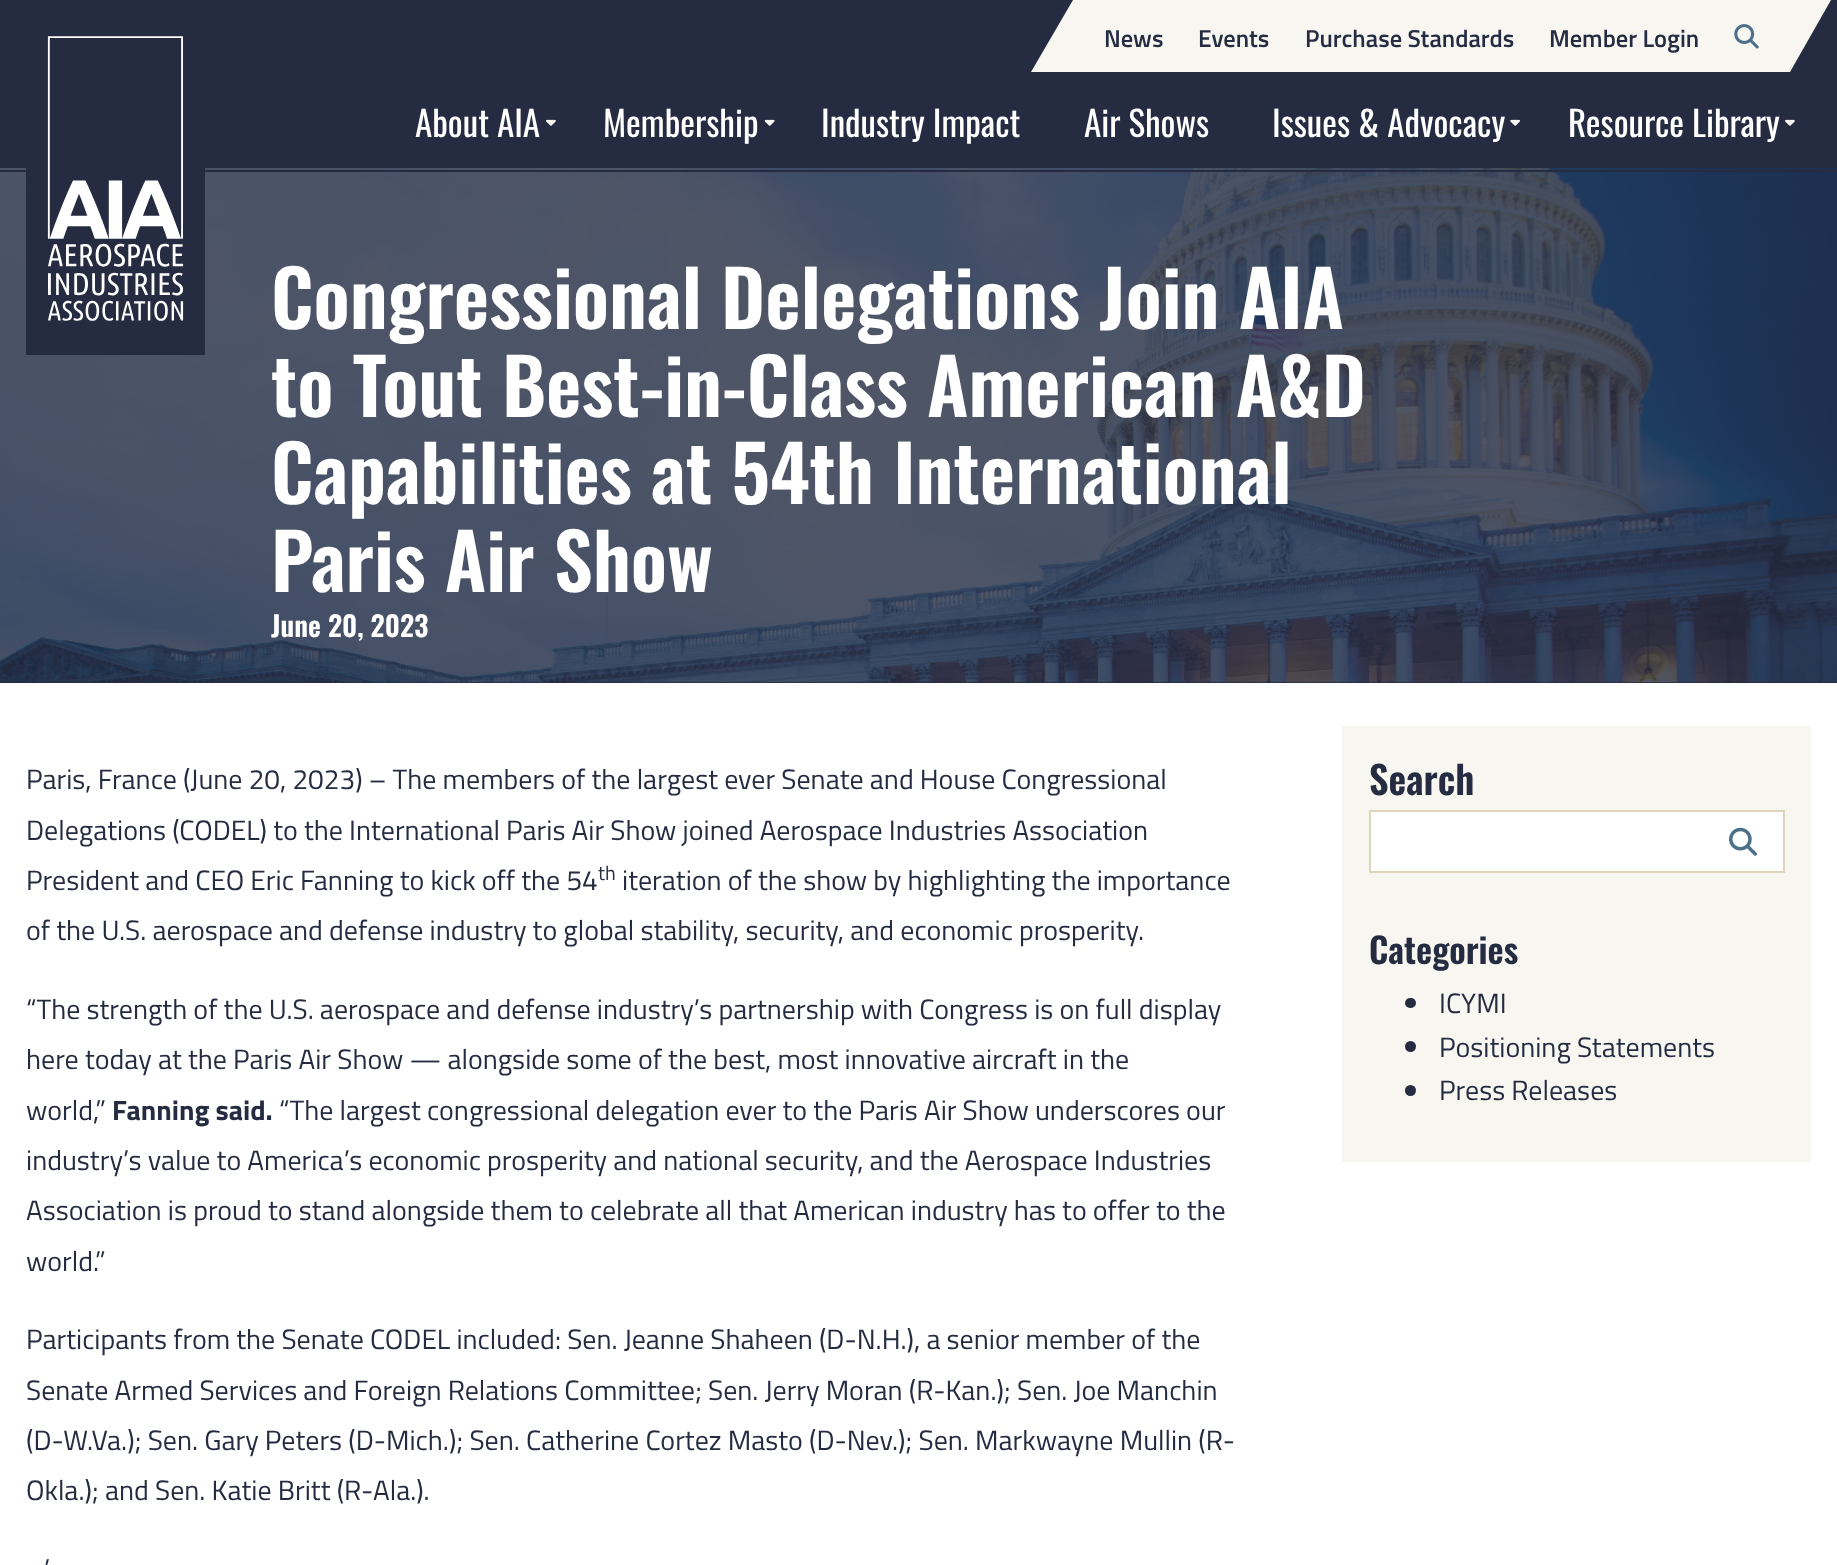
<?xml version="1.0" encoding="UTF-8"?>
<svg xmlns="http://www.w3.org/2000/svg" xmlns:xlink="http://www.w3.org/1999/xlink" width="1837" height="1565">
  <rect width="100%" height="100%" fill="#ffffff" />
  <rect width="1837" height="683" fill="#252c41" />
  <image x="0" y="168" width="1837" height="515" xlink:href="image6.png" />
  <rect y="170" width="1837" height="2" fill="#252c41" />
  <rect x="26" y="168" width="179" height="187" fill="#252c41" />
  <image x="47" y="36" width="137" height="285" xlink:href="image1.png" />
  <path d="M 1073 0 h 758 l -41 72 h -759 z" fill="#f8f6f1" />
  <image x="1734" y="24" width="25" height="25" xlink:href="image2.png" />
  <image x="546" y="119" width="10" height="7" xlink:href="image3.png" />
  <image x="764" y="119" width="11" height="7" xlink:href="image4.png" />
  <image x="1510" y="119" width="11" height="7" xlink:href="image5.png" />
  <image x="1785" y="119" width="10" height="7" xlink:href="image3.png" />
  <rect x="1342" y="726" width="469" height="436" fill="#f8f6f1" />
  <rect x="1370" y="811" width="414" height="61" fill="#ffffff" stroke="#dcd5b9" stroke-width="2" />
  <image x="1729" y="827" width="28" height="29" xlink:href="image7.png" />
  <rect x="1405" y="998" width="11" height="10" rx="5" fill="#252c41" />
  <circle cx="1410.5" cy="1046.5" r="5.5" fill="#252c41" />
  <circle cx="1410.5" cy="1090.5" r="5.5" fill="#252c41" />
  <text x="1104" y="47" style="font-family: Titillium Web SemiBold; font-size: 24.5px; font-weight: 600; fill: #252c41">News</text>
  <text x="1198" y="47" style="font-family: Titillium Web SemiBold; font-size: 24.5px; font-weight: 600; fill: #252c41">Events</text>
  <text x="1305" y="47" style="font-family: Titillium Web SemiBold; font-size: 24.5px; font-weight: 600; fill: #252c41">Purchase Standards</text>
  <text x="1549" y="47" style="font-family: Titillium Web SemiBold; font-size: 24.5px; font-weight: 600; fill: #252c41">Member Login</text>
  <text x="415" y="137" style="font-family: Oswald; font-size: 35px; fill: #ffffff">About AIA</text>
  <text x="603" y="137" style="font-family: Oswald; font-size: 35px; fill: #ffffff">Membership</text>
  <text x="821" y="137" style="font-family: Oswald; font-size: 35px; fill: #ffffff">Industry Impact</text>
  <text x="1084" y="137" style="font-family: Oswald; font-size: 35px; fill: #ffffff">Air Shows</text>
  <text x="1272" y="137" style="font-family: Oswald; font-size: 35px; fill: #ffffff">Issues &amp; Advocacy</text>
  <text x="1568" y="137" style="font-family: Oswald; font-size: 35px; fill: #ffffff">Resource Library</text>
  <text x="271" y="329" style="font-family: Oswald; font-size: 77px; font-weight: 600; fill: #ffffff">Congressional Delegations Join AIA</text>
  <text x="271" y="417" style="font-family: Oswald; font-size: 77px; font-weight: 600; fill: #ffffff">to Tout Best-in-Class American A&amp;D</text>
  <text x="271" y="504" style="font-family: Oswald; font-size: 77px; font-weight: 600; fill: #ffffff">Capabilities at 54th International</text>
  <text x="271" y="592" style="font-family: Oswald; font-size: 77px; font-weight: 600; fill: #ffffff">Paris Air Show</text>
  <text x="271" y="637" style="font-family: Oswald; font-size: 28px; font-weight: 600; fill: #ffffff">June 20, 2023</text>
  <text x="26" y="789" style="font-family: Titillium Web; font-size: 28px; fill: #252c41">Paris, France (June 20, 2023) – The members of the largest ever Senate and House Congressional</text>
  <text x="26" y="840" style="font-family: Titillium Web; font-size: 28px; fill: #252c41">Delegations (CODEL) to the International Paris Air Show joined Aerospace Industries Association</text>
  <text x="26" y="890" style="font-family: Titillium Web; font-size: 28px; fill: #252c41">President and CEO Eric Fanning to kick off the 54</text>
  <text x="598" y="880" style="font-family: Titillium Web; font-size: 20px; fill: #252c41">th</text>
  <text x="622" y="890" style="font-family: Titillium Web; font-size: 28px; fill: #252c41">iteration of the show by highlighting the importance</text>
  <text x="26" y="940" style="font-family: Titillium Web; font-size: 28px; fill: #252c41">of the U.S. aerospace and defense industry to global stability, security, and economic prosperity.</text>
  <text x="26" y="1019" style="font-family: Titillium Web; font-size: 28px; fill: #252c41">“The strength of the U.S. aerospace and defense industry’s partnership with Congress is on full display</text>
  <text x="26" y="1069" style="font-family: Titillium Web; font-size: 28px; fill: #252c41">here today at the Paris Air Show — alongside some of the best, most innovative aircraft in the</text>
  <text x="26" y="1120" style="font-family: Titillium Web; font-size: 28px; fill: #252c41">world,”</text>
  <text x="112" y="1120" style="font-family: Titillium Web; font-size: 28px; font-weight: bold; fill: #252c41">Fanning said.</text>
  <text x="279" y="1120" style="font-family: Titillium Web; font-size: 28px; fill: #252c41">“The largest congressional delegation ever to the Paris Air Show underscores our</text>
  <text x="26" y="1170" style="font-family: Titillium Web; font-size: 28px; fill: #252c41">industry’s value to America’s economic prosperity and national security, and the Aerospace Industries</text>
  <text x="26" y="1220" style="font-family: Titillium Web; font-size: 28px; fill: #252c41">Association is proud to stand alongside them to celebrate all that American industry has to offer to the</text>
  <text x="26" y="1271" style="font-family: Titillium Web; font-size: 28px; fill: #252c41">world.”</text>
  <text x="26" y="1349" style="font-family: Titillium Web; font-size: 28px; fill: #252c41">Participants from the Senate CODEL included: Sen. Jeanne Shaheen (D-N.H.), a senior member of the</text>
  <text x="26" y="1400" style="font-family: Titillium Web; font-size: 28px; fill: #252c41">Senate Armed Services and Foreign Relations Committee; Sen. Jerry Moran (R-Kan.); Sen. Joe Manchin</text>
  <text x="26" y="1450" style="font-family: Titillium Web; font-size: 28px; fill: #252c41">(D-W.Va.); Sen. Gary Peters (D-Mich.); Sen. Catherine Cortez Masto (D-Nev.); Sen. Markwayne Mullin (R-</text>
  <text x="26" y="1500" style="font-family: Titillium Web; font-size: 28px; fill: #252c41">Okla.); and Sen. Katie Britt (R-Ala.).</text>
  <text x="44" y="1579" style="font-family: Titillium Web; font-size: 28px; fill: #252c41">’</text>
  <text x="1369" y="795" style="font-family: Oswald; font-size: 38.5px; font-weight: 600; fill: #252c41">Search</text>
  <text x="1369" y="964" style="font-family: Oswald; font-size: 35px; font-weight: 600; fill: #252c41">Categories</text>
  <text x="1439" y="1013" style="font-family: Titillium Web; font-size: 28px; fill: #252c41">ICYMI</text>
  <text x="1439" y="1057" style="font-family: Titillium Web; font-size: 28px; fill: #252c41">Positioning Statements</text>
  <text x="1439" y="1100" style="font-family: Titillium Web; font-size: 28px; fill: #252c41">Press Releases</text>
</svg>
